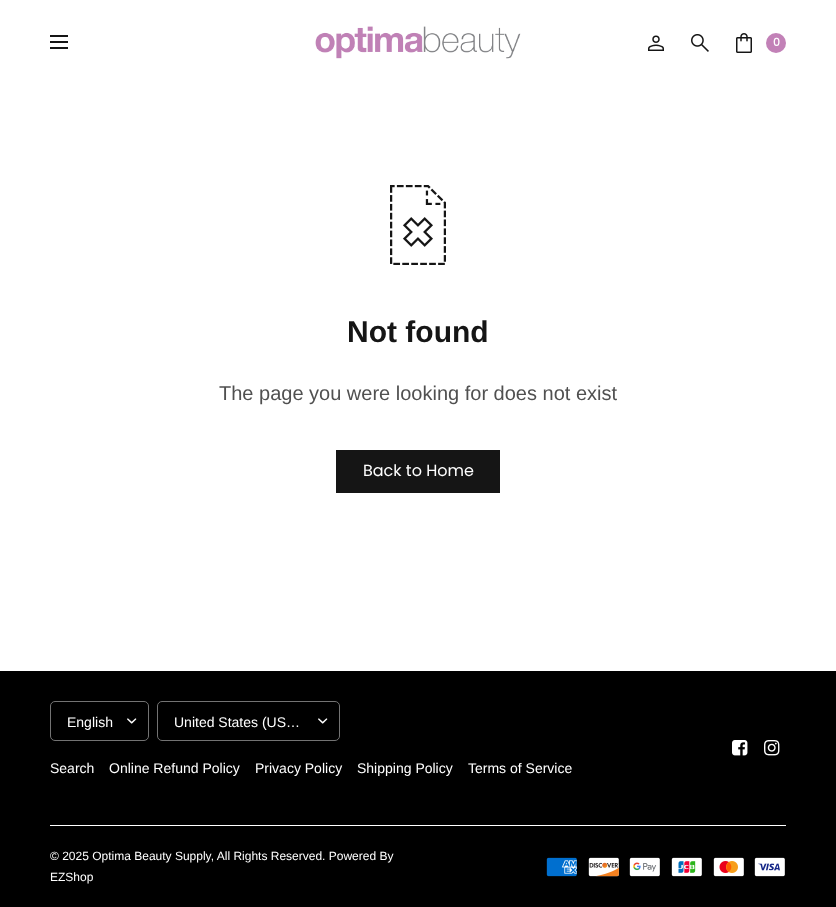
<?xml version="1.0" encoding="UTF-8"?>
<svg xmlns="http://www.w3.org/2000/svg" xmlns:xlink="http://www.w3.org/1999/xlink" width="836" height="907">
  <rect width="100%" height="100%" fill="#ffffff" />
  <rect x="50" y="35" width="18" height="2" fill="#151515" />
  <rect x="50" y="41" width="18" height="2" fill="#151515" />
  <rect x="50" y="47" width="18" height="2" fill="#151515" />
  <image x="315" y="26" width="206" height="33" xlink:href="image1.png" />
  <image x="648" y="35" width="16" height="16" xlink:href="image2.png" />
  <image x="691" y="34" width="18" height="18" xlink:href="image3.png" />
  <image x="736" y="33" width="16" height="20" xlink:href="image4.png" />
  <circle cx="776" cy="43" r="10" fill="#c281b7" />
  <image x="390" y="185" width="56" height="80" xlink:href="image5.png" />
  <rect x="336" y="450" width="164" height="43" fill="#151515" />
  <rect y="671" width="836" height="236" fill="#000000" />
  <rect x="50.5" y="701.5" width="98" height="39" rx="4.5" fill="none" stroke="#737373" />
  <image x="127" y="718" width="10" height="6" xlink:href="image6.png" />
  <rect x="157.5" y="701.5" width="182" height="39" rx="4.5" fill="none" stroke="#737373" />
  <image x="318" y="718" width="10" height="6" xlink:href="image6.png" />
  <image x="732" y="740" width="16" height="16" xlink:href="image7.png" />
  <image x="764" y="740" width="16" height="16" xlink:href="image8.png" />
  <rect x="50" y="825" width="736" height="1" fill="#ffffff" />
  <image x="546" y="857" width="31" height="20" xlink:href="image9.png" />
  <image x="588" y="857" width="31" height="20" xlink:href="image10.png" />
  <image x="629" y="857" width="31" height="20" xlink:href="image11.png" />
  <image x="671" y="857" width="31" height="20" xlink:href="image12.png" />
  <image x="713" y="857" width="31" height="20" xlink:href="image13.png" />
  <image x="754" y="857" width="31" height="20" xlink:href="image14.png" />
  <text x="773" y="46" style="font-family: Poppins; font-size: 11px; font-weight: bold; fill: #ffffff">0</text>
  <text x="347" y="342" style="font-family: Liberation Sans; font-size: 30px; font-weight: bold; fill: #151515">Not found</text>
  <text x="219" y="400" style="font-family: Liberation Sans; font-size: 20px; fill: #505050">The page you were looking for does not exist</text>
  <text x="363" y="476" style="font-family: Poppins; font-size: 16px; fill: #ffffff">Back to Home</text>
  <text x="67" y="727" style="font-family: Liberation Sans; font-size: 14px; fill: #ffffff">English</text>
  <text x="174" y="727" style="font-family: Liberation Sans; font-size: 14px; fill: #ffffff">United States (US…</text>
  <text x="50" y="773" style="font-family: Liberation Sans; font-size: 14px; fill: #ffffff">Search</text>
  <text x="109" y="773" style="font-family: Liberation Sans; font-size: 14px; fill: #ffffff">Online Refund Policy</text>
  <text x="255" y="773" style="font-family: Liberation Sans; font-size: 14px; fill: #ffffff">Privacy Policy</text>
  <text x="357" y="773" style="font-family: Liberation Sans; font-size: 14px; fill: #ffffff">Shipping Policy</text>
  <text x="468" y="773" style="font-family: Liberation Sans; font-size: 14px; fill: #ffffff">Terms of Service</text>
  <text x="50" y="860" style="font-family: Liberation Sans; font-size: 12px; fill: #ffffff">© 2025 Optima Beauty Supply, All Rights Reserved. Powered By</text>
  <text x="50" y="881" style="font-family: Liberation Sans; font-size: 12px; fill: #ffffff">EZShop</text>
</svg>
